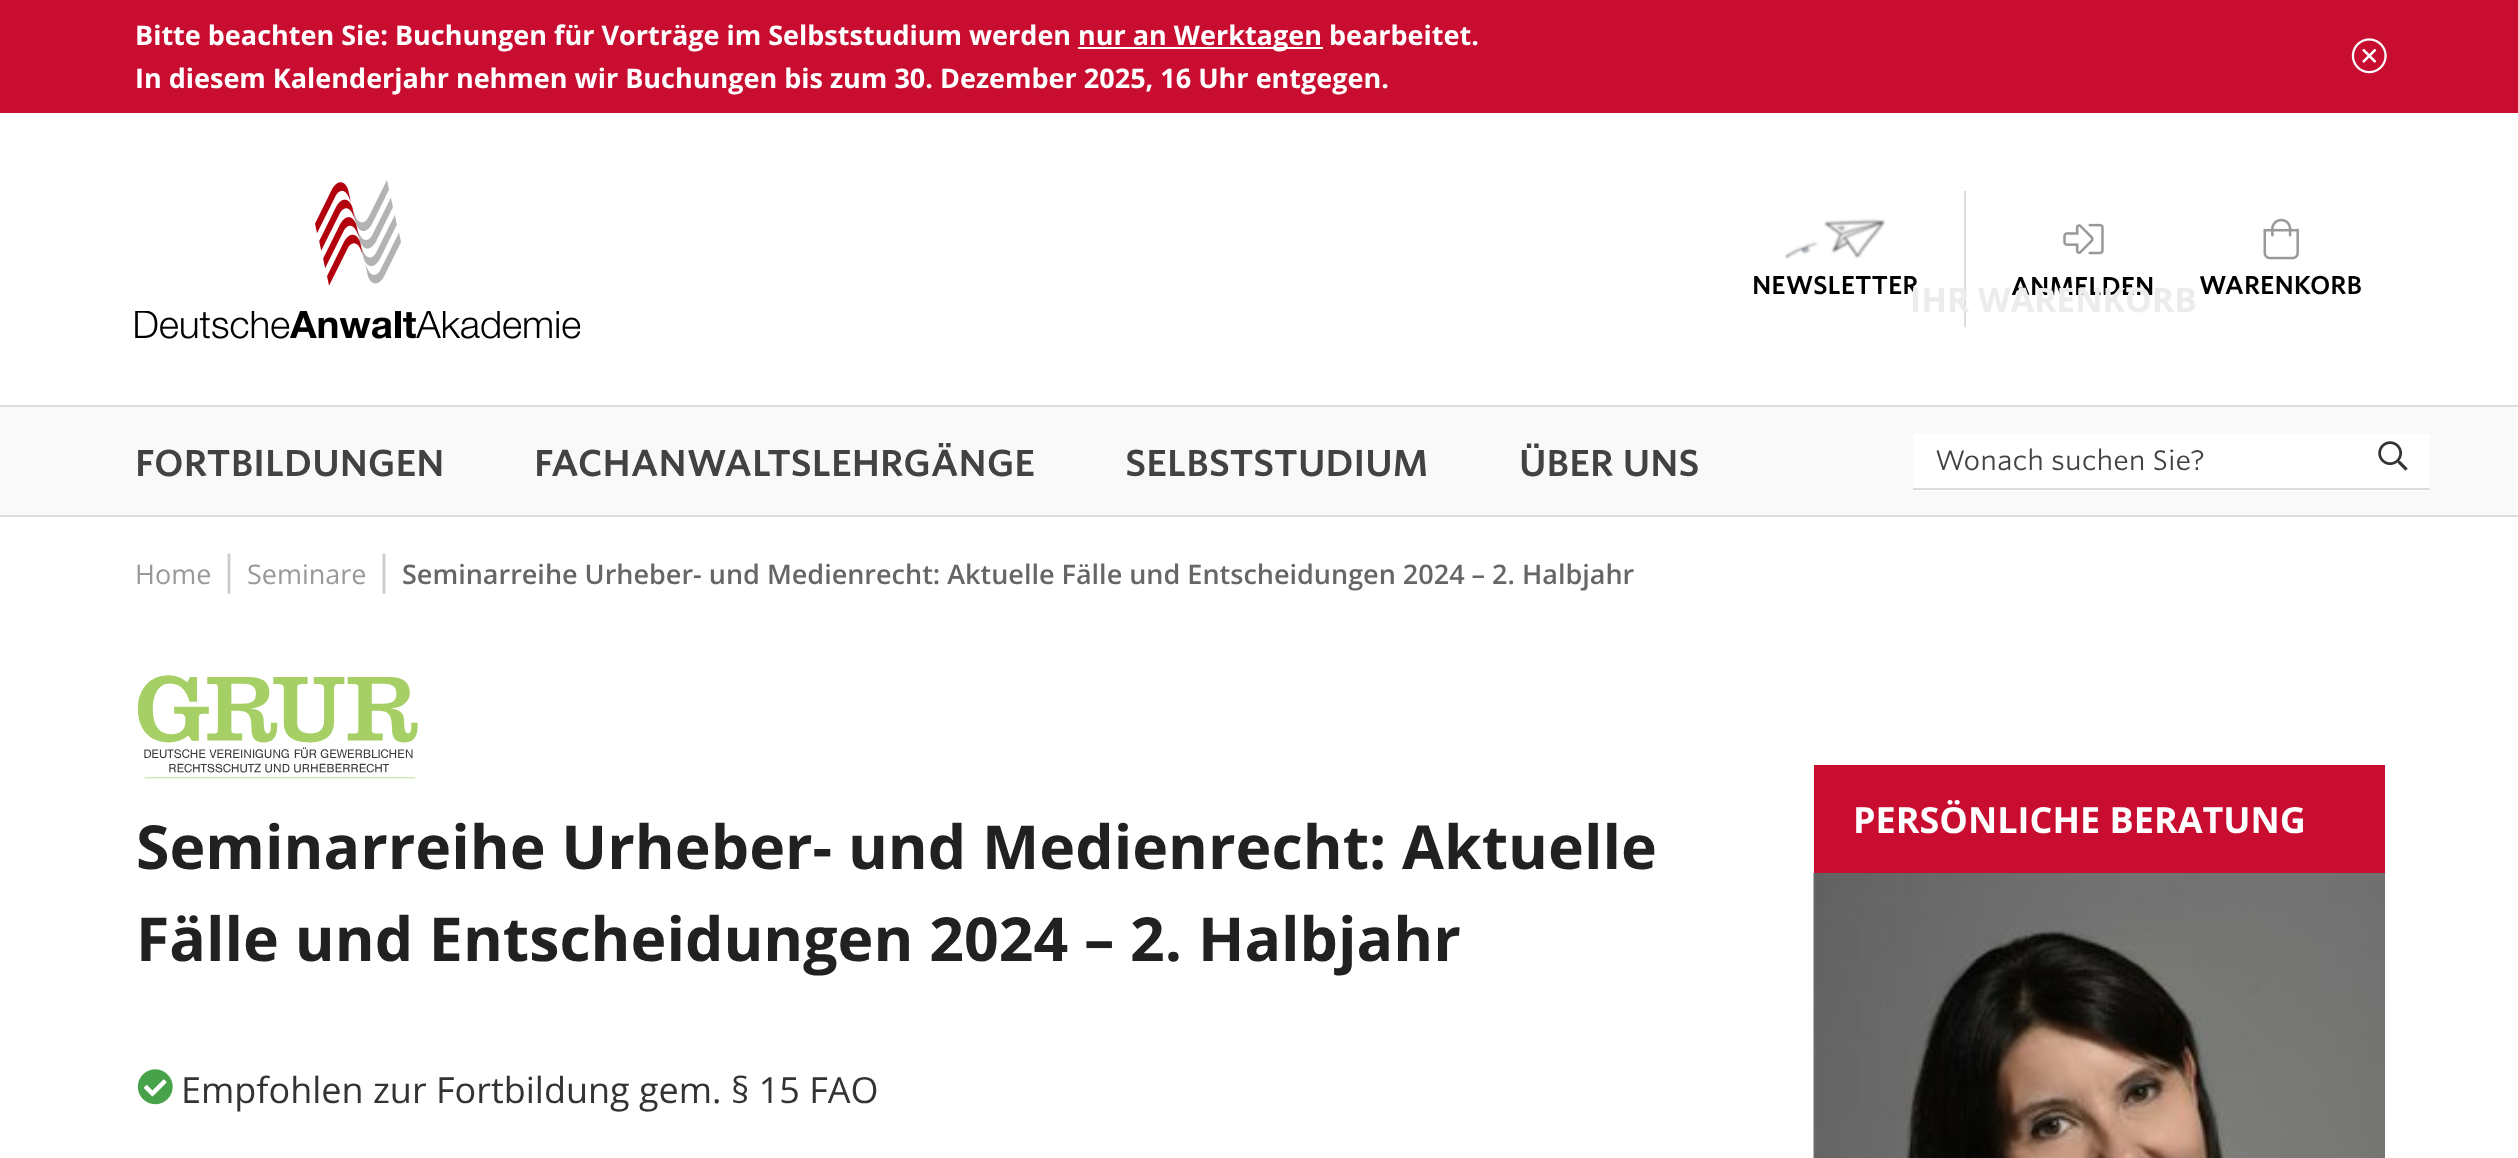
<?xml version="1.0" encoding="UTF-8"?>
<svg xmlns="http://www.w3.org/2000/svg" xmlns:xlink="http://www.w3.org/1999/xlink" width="2518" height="1158">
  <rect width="100%" height="100%" fill="#ffffff" />
  <rect width="2518" height="113" fill="#c80d31" />
  <rect x="1078" y="47" width="245" height="2" fill="#ffffff" />
  <image x="2351" y="38" width="36" height="36" xlink:href="image1.png" />
  <rect y="515" width="2518" height="2" fill="#dcdcdc" />
  <image x="315" y="180" width="86" height="106" xlink:href="image2.png" />
  <image x="135" y="311" width="445" height="28" xlink:href="image3.png" />
  <path d="M 1966 191 v 137 l -2 -2 v -135 z" fill="#dcdcdc" />
  <image x="1784" y="218" width="102" height="41" xlink:href="image4.png" />
  <image x="2263" y="218" width="36" height="42" xlink:href="image5.png" />
  <image x="2063" y="223" width="41" height="32" xlink:href="image6.png" />
  <rect y="407" width="2518" height="108" fill="#f9f9f9" />
  <rect y="405" width="2518" height="2" fill="#dcdcdc" />
  <rect x="1913" y="434" width="517" height="57" fill="#ffffff" />
  <rect x="1913" y="488" width="517" height="2" fill="#dcdcdc" />
  <image x="2378" y="441" width="30" height="30" xlink:href="image7.png" />
  <rect x="1814" y="765" width="571" height="108" fill="#c80d31" />
  <image x="1813" y="873" width="572" height="285" xlink:href="image8.png" />
  <image x="137" y="675" width="281" height="104" xlink:href="image9.png" />
  <image x="137" y="1069" width="36" height="36" xlink:href="image10.png" />
  <text x="135" y="45" style="font-family: Open Sans; font-size: 27px; font-weight: bold; fill: #ffffff">Bitte beachten Sie: Buchungen für Vorträge im Selbststudium werden</text>
  <text x="1078" y="45" style="font-family: Open Sans; font-size: 27px; font-weight: bold; fill: #ffffff">nur an Werktagen bearbeitet.</text>
  <text x="135" y="88" style="font-family: Open Sans; font-size: 27px; font-weight: bold; fill: #ffffff">In diesem Kalenderjahr nehmen wir Buchungen bis zum 30. Dezember 2025, 16 Uhr entgegen.</text>
  <text x="1752" y="294" style="font-family: 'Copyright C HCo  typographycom'; font-size: 24.75px; fill: #000000">NEWSLETTER</text>
  <text x="2199" y="294" style="font-family: 'Copyright C HCo  typographycom'; font-size: 24.75px; fill: #000000">WARENKORB</text>
  <text x="2011" y="295" style="font-family: 'Copyright C HCo  typographycom'; font-size: 24.75px; fill: #000000">ANMELDEN</text>
  <text x="1910" y="312" style="font-family: Open Sans; font-size: 33.75px; font-weight: bold; fill: #ececec">IHR WARENKORB</text>
  <text x="135" y="476" style="font-family: 'Copyright C HCo  typographycom'; font-size: 36px; fill: #424242">FORTBILDUNGEN</text>
  <text x="534" y="476" style="font-family: 'Copyright C HCo  typographycom'; font-size: 36px; fill: #424242">FACHANWALTSLEHRGÄNGE</text>
  <text x="1125" y="476" style="font-family: 'Copyright C HCo  typographycom'; font-size: 36px; fill: #424242">SELBSTSTUDIUM</text>
  <text x="1519" y="476" style="font-family: 'Copyright C HCo  typographycom'; font-size: 36px; fill: #424242">ÜBER UNS</text>
  <text x="1935" y="470" style="font-family: 'Copyright C HCo  typographycom'; font-size: 27px; font-weight: 300; fill: #424242">Wonach suchen Sie?</text>
  <text x="135" y="584" style="font-family: Open Sans; font-size: 27px; fill: #999999">Home</text>
  <text x="218" y="584" style="font-family: Open Sans; font-size: 40px; fill: #cccccc">|</text>
  <text x="247" y="584" style="font-family: Open Sans; font-size: 27px; fill: #999999">Seminare</text>
  <text x="373" y="584" style="font-family: Open Sans; font-size: 40px; fill: #cccccc">|</text>
  <text x="402" y="584" style="font-family: Open Sans; font-size: 27px; font-weight: 600; fill: #666666">Seminarreihe Urheber- und Medienrecht: Aktuelle Fälle und Entscheidungen 2024 – 2. Halbjahr</text>
  <text x="1853" y="833" style="font-family: Open Sans; font-size: 36px; font-weight: bold; fill: #ffffff">PERSÖNLICHE BERATUNG</text>
  <text x="136" y="869" style="font-family: Open Sans; font-size: 60.75px; font-weight: bold; fill: #212121">Seminarreihe Urheber- und Medienrecht: Aktuelle</text>
  <text x="136" y="961" style="font-family: Open Sans; font-size: 60.75px; font-weight: bold; fill: #212121">Fälle und Entscheidungen 2024 – 2. Halbjahr</text>
  <text x="181" y="1103" style="font-family: Open Sans; font-size: 36px; fill: #333333">Empfohlen zur Fortbildung gem. § 15 FAO</text>
</svg>
